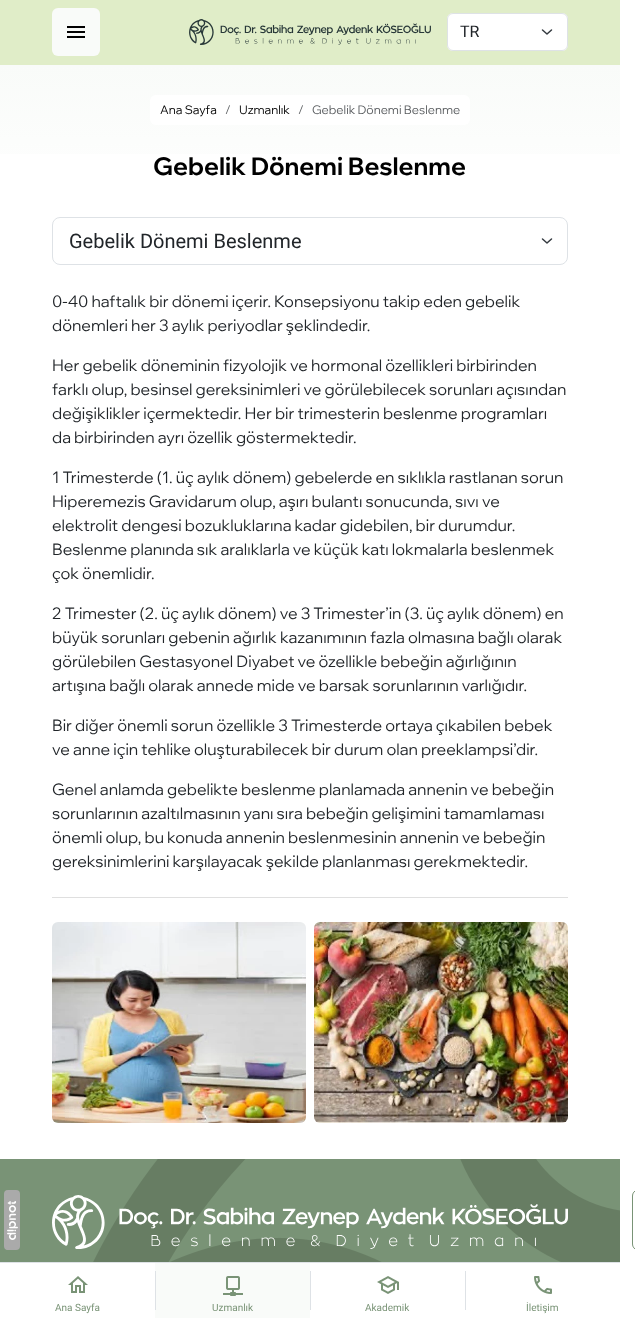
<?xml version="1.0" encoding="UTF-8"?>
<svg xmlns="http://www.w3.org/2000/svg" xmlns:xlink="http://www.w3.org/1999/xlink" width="635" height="1318">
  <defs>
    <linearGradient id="g1" gradientUnits="userSpaceOnUse" x1="310" y1="217" x2="310" y2="65"><stop offset="0" stop-color="#ffffff" /><stop offset="1" stop-color="#f9fbf9" /></linearGradient>
  </defs>
  <rect width="100%" height="100%" fill="#ffffff" />
  <rect width="620" height="65" fill="#e0edc8" />
  <rect x="52" y="8" width="48" height="48" rx="6" fill="#f9fbf9" />
  <image x="67" y="26" width="18" height="12" xlink:href="image1.png" />
  <image x="189" y="19" width="242" height="26" xlink:href="image2.png" />
  <rect x="447" y="13" width="121" height="38" rx="6" fill="#ffffff" />
  <path d="M 542.5 30 l 4.5 4 l 4.5 -4" fill="none" stroke="#343a40" stroke-width="1.5" stroke-linecap="round" stroke-linejoin="round" />
  <rect x="447.5" y="13.5" width="120" height="37" rx="5.5" fill="none" stroke="#dee2e6" />
  <rect y="65" width="620" height="89" fill="url(#g1)" />
  <rect x="150" y="95" width="320" height="30" rx="6" fill="#ffffff" />
  <path d="M 542.5 239 l 4.5 4 l 4.5 -4" fill="none" stroke="#343a40" stroke-width="1.5" stroke-linecap="round" stroke-linejoin="round" />
  <rect x="52.5" y="217.5" width="515" height="47" rx="7.5" fill="none" stroke="#dee2e6" />
  <rect x="52" y="897" width="516" height="1" fill="#dfdfdf" />
  <image x="52" y="922" width="254" height="201" xlink:href="image3.png" />
  <image x="314" y="922" width="254" height="201" xlink:href="image4.png" />
  <rect y="1159" width="620" height="103" fill="#799376" />
  <image x="93" y="1159" width="527" height="103" xlink:href="image5.png" />
  <image x="52" y="1195" width="516" height="54" xlink:href="image6.png" />
  <rect x="4" y="1190" width="16" height="60" rx="4" fill="#aaaaaa" />
  <image x="7" y="1201" width="11" height="39" xlink:href="image7.png" />
  <rect x="632.5" y="1190.5" width="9" height="59" rx="5.5" fill="none" stroke="#799376" />
  <rect y="1262" width="620" height="1" fill="#dee2e6" />
  <image x="68" y="1276" width="20" height="17" xlink:href="image8.png" />
  <rect x="155" y="1263" width="155" height="55" fill="#f9fbf9" />
  <rect x="155" y="1271" width="1" height="39" fill="#dee2e6" />
  <image x="223" y="1276" width="20" height="20" xlink:href="image9.png" />
  <rect x="310" y="1271" width="1" height="39" fill="#dee2e6" />
  <image x="377" y="1276" width="22" height="18" xlink:href="image10.png" />
  <rect x="465" y="1271" width="1" height="39" fill="#dee2e6" />
  <image x="534" y="1276" width="18" height="18" xlink:href="image11.png" />
  <text x="460" y="37" style="font-family: Roboto; font-size: 16px; fill: #212529">TR</text>
  <text x="160" y="114" style="font-family: Wix Madefor Display; font-size: 12px; fill: #000000">Ana Sayfa</text>
  <text x="225" y="114" style="font-family: Wix Madefor Display; font-size: 12px; fill: #595c5f">/</text>
  <text x="239" y="114" style="font-family: Wix Madefor Display; font-size: 12px; fill: #000000">Uzmanlık</text>
  <text x="298" y="114" style="font-family: Wix Madefor Display; font-size: 12px; fill: #595c5f">/</text>
  <text x="312" y="114" style="font-family: Wix Madefor Display; font-size: 12px; fill: #595c5f">Gebelik Dönemi Beslenme</text>
  <text x="153" y="175" style="font-family: Wix Madefor Display; font-size: 24.6px; font-weight: bold; fill: #000000">Gebelik Dönemi Beslenme</text>
  <text x="69" y="248" style="font-family: Roboto; font-size: 20px; fill: #212529">Gebelik Dönemi Beslenme</text>
  <text x="52" y="307" style="font-family: Wix Madefor Display; font-size: 16px; fill: #212529">0-40 haftalık bir dönemi içerir. Konsepsiyonu takip eden gebelik</text>
  <text x="52" y="331" style="font-family: Wix Madefor Display; font-size: 16px; fill: #212529">dönemleri her 3 aylık periyodlar şeklindedir.</text>
  <text x="52" y="371" style="font-family: Wix Madefor Display; font-size: 16px; fill: #212529">Her gebelik döneminin fizyolojik ve hormonal özellikleri birbirinden</text>
  <text x="52" y="395" style="font-family: Wix Madefor Display; font-size: 16px; fill: #212529">farklı olup, besinsel gereksinimleri ve görülebilecek sorunları açısından</text>
  <text x="52" y="419" style="font-family: Wix Madefor Display; font-size: 16px; fill: #212529">değişiklikler içermektedir. Her bir trimesterin beslenme programları</text>
  <text x="52" y="443" style="font-family: Wix Madefor Display; font-size: 16px; fill: #212529">da birbirinden ayrı özellik göstermektedir.</text>
  <text x="52" y="483" style="font-family: Wix Madefor Display; font-size: 16px; fill: #212529">1 Trimesterde (1. üç aylık dönem) gebelerde en sıklıkla rastlanan sorun</text>
  <text x="52" y="507" style="font-family: Wix Madefor Display; font-size: 16px; fill: #212529">Hiperemezis Gravidarum olup, aşırı bulantı sonucunda, sıvı ve</text>
  <text x="52" y="531" style="font-family: Wix Madefor Display; font-size: 16px; fill: #212529">elektrolit dengesi bozukluklarına kadar gidebilen, bir durumdur.</text>
  <text x="52" y="555" style="font-family: Wix Madefor Display; font-size: 16px; fill: #212529">Beslenme planında sık aralıklarla ve küçük katı lokmalarla beslenmek</text>
  <text x="52" y="579" style="font-family: Wix Madefor Display; font-size: 16px; fill: #212529">çok önemlidir.</text>
  <text x="52" y="619" style="font-family: Wix Madefor Display; font-size: 16px; fill: #212529">2 Trimester (2. üç aylık dönem) ve 3 Trimester’in (3. üç aylık dönem) en</text>
  <text x="52" y="643" style="font-family: Wix Madefor Display; font-size: 16px; fill: #212529">büyük sorunları gebenin ağırlık kazanımının fazla olmasına bağlı olarak</text>
  <text x="52" y="667" style="font-family: Wix Madefor Display; font-size: 16px; fill: #212529">görülebilen Gestasyonel Diyabet ve özellikle bebeğin ağırlığının</text>
  <text x="52" y="691" style="font-family: Wix Madefor Display; font-size: 16px; fill: #212529">artışına bağlı olarak annede mide ve barsak sorunlarının varlığıdır.</text>
  <text x="52" y="731" style="font-family: Wix Madefor Display; font-size: 16px; fill: #212529">Bir diğer önemli sorun özellikle 3 Trimesterde ortaya çıkabilen bebek</text>
  <text x="52" y="755" style="font-family: Wix Madefor Display; font-size: 16px; fill: #212529">ve anne için tehlike oluşturabilecek bir durum olan preeklampsi’dir.</text>
  <text x="52" y="795" style="font-family: Wix Madefor Display; font-size: 16px; fill: #212529">Genel anlamda gebelikte beslenme planlamada annenin ve bebeğin</text>
  <text x="52" y="819" style="font-family: Wix Madefor Display; font-size: 16px; fill: #212529">sorunlarının azaltılmasının yanı sıra bebeğin gelişimini tamamlaması</text>
  <text x="52" y="843" style="font-family: Wix Madefor Display; font-size: 16px; fill: #212529">önemli olup, bu konuda annenin beslenmesinin annenin ve bebeğin</text>
  <text x="52" y="867" style="font-family: Wix Madefor Display; font-size: 16px; fill: #212529">gereksinimlerini karşılayacak şekilde planlanması gerekmektedir.</text>
  <text x="55" y="1311" style="font-family: Roboto; font-size: 10px; fill: #799376">Ana Sayfa</text>
  <text x="212" y="1311" style="font-family: Roboto; font-size: 10px; fill: #799376">Uzmanlık</text>
  <text x="365" y="1311" style="font-family: Roboto; font-size: 10px; fill: #799376">Akademik</text>
  <text x="526" y="1311" style="font-family: Roboto; font-size: 10px; fill: #799376">İletişim</text>
</svg>
